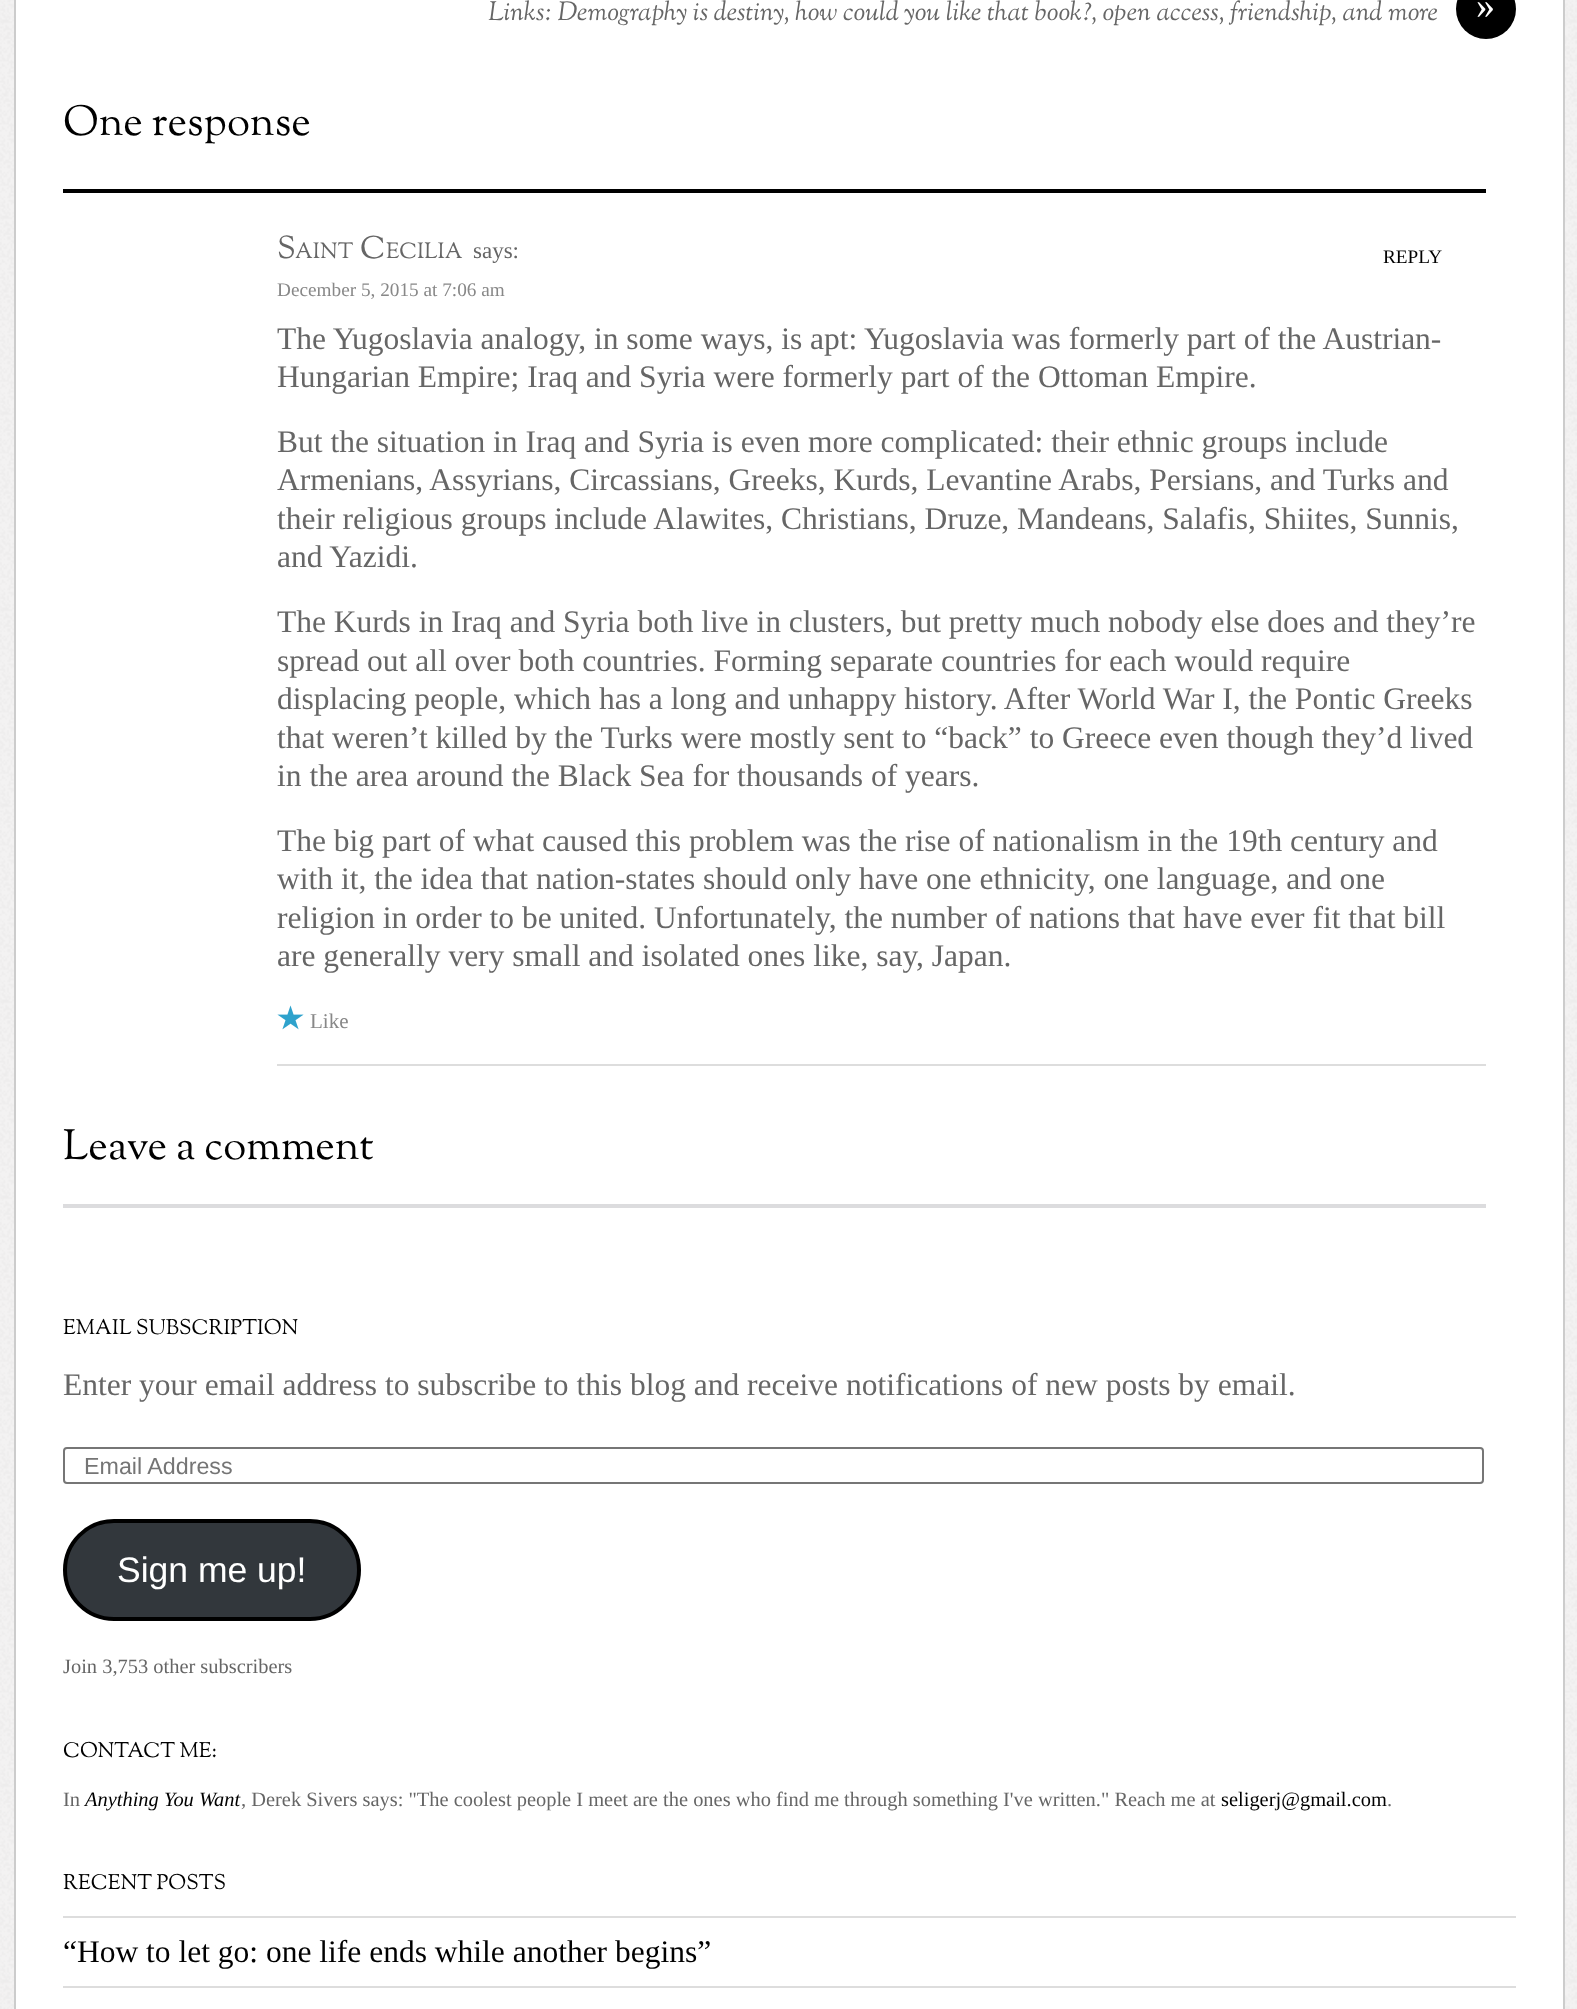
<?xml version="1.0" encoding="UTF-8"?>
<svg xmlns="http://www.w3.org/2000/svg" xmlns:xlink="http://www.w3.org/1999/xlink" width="1577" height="2009">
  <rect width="100%" height="100%" fill="#f4f3f3" />
  <image x="0" y="0" width="1577" height="2009" xlink:href="image1.png" />
  <rect x="16" width="1547" height="2009" fill="#ffffff" />
  <rect x="1563" width="2" height="2009" fill="#cccccc" />
  <rect x="14" width="2" height="2009" fill="#cccccc" />
  <circle cx="1486" cy="9" r="30" fill="#000000" />
  <rect x="63" y="189" width="1423" height="4" fill="#000000" />
  <rect x="277" y="1064" width="1209" height="2" fill="#dddddd" />
  <image x="277" y="1005" width="27" height="25" xlink:href="image2.png" />
  <rect x="63" y="1204" width="1423" height="4" fill="#dcdcde" />
  <rect x="64" y="1448" width="1419" height="35" rx="3" fill="none" stroke="#767676" stroke-width="2" />
  <rect x="65" y="1521" width="294" height="98" rx="49" fill="#32373c" stroke="#000000" stroke-width="4" />
  <rect x="63" y="1916" width="1453" height="2" fill="#dddddd" />
  <rect x="63" y="1986" width="1453" height="2" fill="#dddddd" />
  <text x="488" y="20" style="font-family: Sorts Mill Goudy; font-size: 26.25px; font-style: italic; fill: #666666">Links: Demography is destiny, how could you like that book?, open access, friendship, and more</text>
  <text x="1476" y="18" style="font-family: Liberation Serif; font-size: 38px; fill: #ffffff">»</text>
  <text x="63" y="135" style="font-family: Sorts Mill Goudy; font-size: 42px; fill: #000000">One response</text>
  <text x="277" y="258" style="font-family: Sorts Mill Goudy; font-size: 31.5px; fill: #666666">S</text>
  <text x="295" y="258" style="font-family: Sorts Mill Goudy; font-size: 22px; fill: #666666">AINT</text>
  <text x="360" y="258" style="font-family: Sorts Mill Goudy; font-size: 31.5px; fill: #666666">C</text>
  <text x="386" y="258" style="font-family: Sorts Mill Goudy; font-size: 22px; fill: #666666">ECILIA</text>
  <text x="473" y="258" style="font-family: Liberation Serif; font-size: 23px; fill: #666666">says:</text>
  <text x="277" y="296" style="font-family: Liberation Serif; font-size: 19.25px; fill: #888888">December 5, 2015 at 7:06 am</text>
  <text x="1383" y="263" style="font-family: Liberation Serif; font-size: 19.25px; fill: #000000">REPLY</text>
  <text x="277" y="349" style="font-family: Liberation Serif; font-size: 31.5px; fill: #666666">The Yugoslavia analogy, in some ways, is apt: Yugoslavia was formerly part of the Austrian-</text>
  <text x="277" y="387" style="font-family: Liberation Serif; font-size: 31.5px; fill: #666666">Hungarian Empire; Iraq and Syria were formerly part of the Ottoman Empire.</text>
  <text x="277" y="452" style="font-family: Liberation Serif; font-size: 31.5px; fill: #666666">But the situation in Iraq and Syria is even more complicated: their ethnic groups include</text>
  <text x="277" y="490" style="font-family: Liberation Serif; font-size: 31.5px; fill: #666666">Armenians, Assyrians, Circassians, Greeks, Kurds, Levantine Arabs, Persians, and Turks and</text>
  <text x="277" y="529" style="font-family: Liberation Serif; font-size: 31.5px; fill: #666666">their religious groups include Alawites, Christians, Druze, Mandeans, Salafis, Shiites, Sunnis,</text>
  <text x="277" y="567" style="font-family: Liberation Serif; font-size: 31.5px; fill: #666666">and Yazidi.</text>
  <text x="277" y="632" style="font-family: Liberation Serif; font-size: 31.5px; fill: #666666">The Kurds in Iraq and Syria both live in clusters, but pretty much nobody else does and they’re</text>
  <text x="277" y="671" style="font-family: Liberation Serif; font-size: 31.5px; fill: #666666">spread out all over both countries. Forming separate countries for each would require</text>
  <text x="277" y="709" style="font-family: Liberation Serif; font-size: 31.5px; fill: #666666">displacing people, which has a long and unhappy history. After World War I, the Pontic Greeks</text>
  <text x="277" y="748" style="font-family: Liberation Serif; font-size: 31.5px; fill: #666666">that weren’t killed by the Turks were mostly sent to “back” to Greece even though they’d lived</text>
  <text x="277" y="786" style="font-family: Liberation Serif; font-size: 31.5px; fill: #666666">in the area around the Black Sea for thousands of years.</text>
  <text x="277" y="851" style="font-family: Liberation Serif; font-size: 31.5px; fill: #666666">The big part of what caused this problem was the rise of nationalism in the 19th century and</text>
  <text x="277" y="889" style="font-family: Liberation Serif; font-size: 31.5px; fill: #666666">with it, the idea that nation-states should only have one ethnicity, one language, and one</text>
  <text x="277" y="928" style="font-family: Liberation Serif; font-size: 31.5px; fill: #666666">religion in order to be united. Unfortunately, the number of nations that have ever fit that bill</text>
  <text x="277" y="966" style="font-family: Liberation Serif; font-size: 31.5px; fill: #666666">are generally very small and isolated ones like, say, Japan.</text>
  <text x="310" y="1028" style="font-family: Liberation Serif; font-size: 21px; fill: #888888">Like</text>
  <text x="63" y="1159" style="font-family: Sorts Mill Goudy; font-size: 42px; fill: #000000">Leave a comment</text>
  <text x="63" y="1334" style="font-family: Sorts Mill Goudy; font-size: 21px; fill: #000000">EMAIL SUBSCRIPTION</text>
  <text x="63" y="1395" style="font-family: Liberation Serif; font-size: 31.5px; fill: #666666">Enter your email address to subscribe to this blog and receive notifications of new posts by email.</text>
  <text x="84" y="1474" style="font-family: Liberation Sans; font-size: 23.25px; fill: #757575">Email Address</text>
  <text x="117" y="1582" style="font-family: Liberation Sans; font-size: 35.5px; fill: #ffffff">Sign me up!</text>
  <text x="63" y="1673" style="font-family: Liberation Serif; font-size: 20.45px; fill: #666666">Join 3,753 other subscribers</text>
  <text x="63" y="1757" style="font-family: Sorts Mill Goudy; font-size: 21px; fill: #000000">CONTACT ME:</text>
  <text x="63" y="1806" style="font-family: Liberation Serif; font-size: 20.45px; fill: #666666">In</text>
  <text x="85" y="1806" style="font-family: Liberation Serif; font-size: 20.45px; font-style: italic; fill: #000000">Anything You Want</text>
  <text x="241" y="1806" style="font-family: Liberation Serif; font-size: 20.45px; fill: #666666">, Derek Sivers says: "The coolest people I meet are the ones who find me through something I've written." Reach me at</text>
  <text x="1221" y="1806" style="font-family: Liberation Serif; font-size: 20.45px; fill: #000000">seligerj@gmail.com</text>
  <text x="1387" y="1806" style="font-family: Liberation Serif; font-size: 20.45px; fill: #666666">.</text>
  <text x="63" y="1889" style="font-family: Sorts Mill Goudy; font-size: 21px; fill: #000000">RECENT POSTS</text>
  <text x="63" y="1962" style="font-family: Liberation Serif; font-size: 31.5px; fill: #000000">“How to let go: one life ends while another begins”</text>
</svg>
